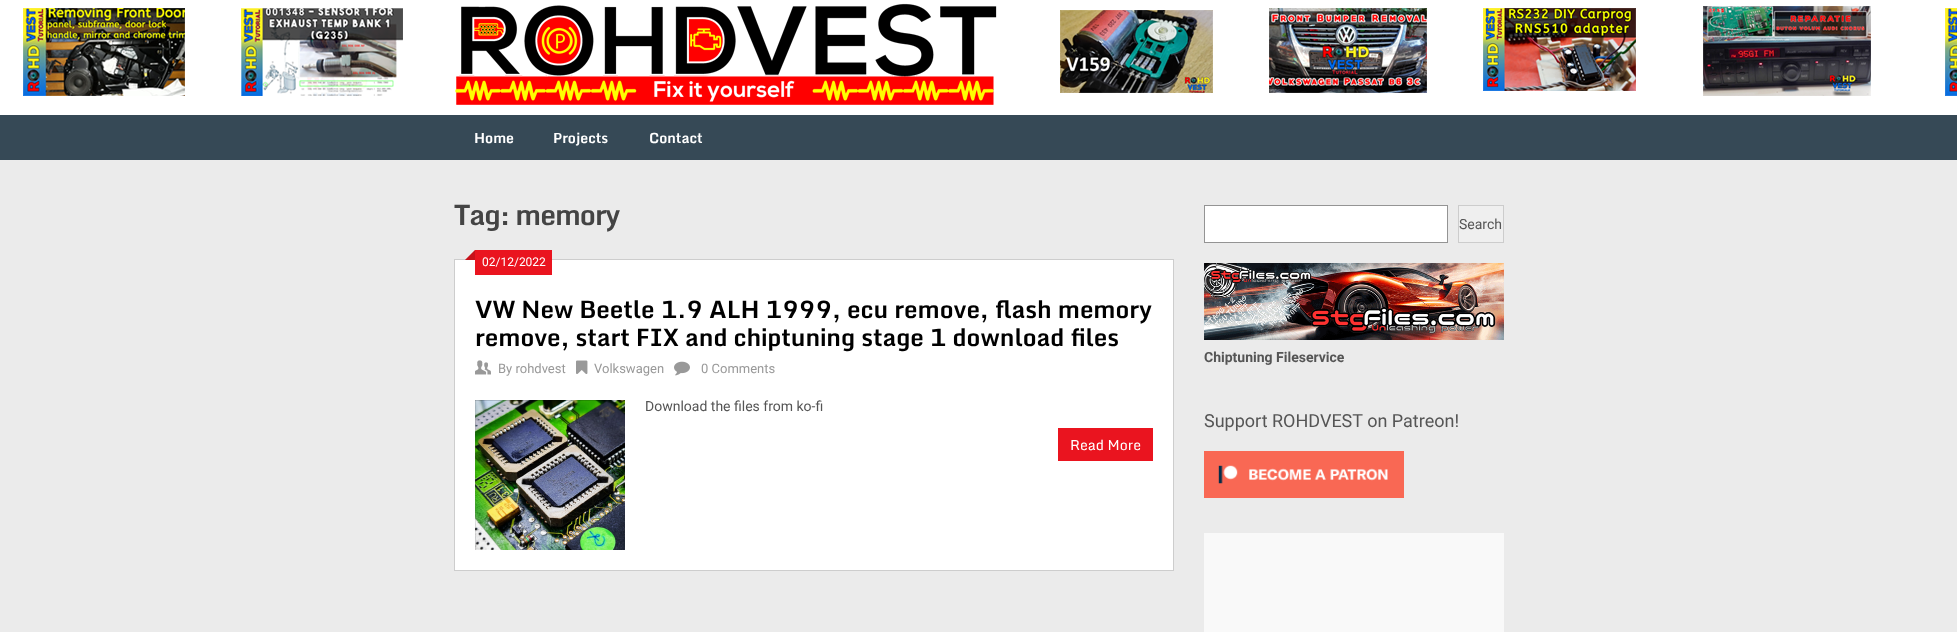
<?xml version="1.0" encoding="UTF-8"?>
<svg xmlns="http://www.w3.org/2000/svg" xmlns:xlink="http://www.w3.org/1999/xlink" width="1957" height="632">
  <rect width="100%" height="100%" fill="#ebebeb" />
  <image x="0" y="0" width="1957" height="115" xlink:href="image1.png" />
  <rect y="115" width="1957" height="45" fill="#364956" />
  <rect x="454.5" y="259.5" width="719" height="311" fill="#ffffff" stroke="#cdcdcd" />
  <rect x="475" y="250" width="77" height="25" fill="#ea141f" />
  <path d="M 475 260 h -10 l 10 -10 z" fill="#ea141f" />
  <path d="M 475 260 h -10 l 10 -10 z" fill="#000000" fill-opacity="0.15" />
  <image x="475" y="360" width="16" height="15" xlink:href="image2.png" />
  <image x="576" y="360" width="12" height="14" xlink:href="image3.png" />
  <image x="674" y="361" width="16" height="15" xlink:href="image4.png" />
  <image x="475" y="400" width="150" height="150" xlink:href="image5.png" />
  <rect x="1058" y="428" width="95" height="33" fill="#ea141f" />
  <rect x="1204.5" y="205.5" width="243" height="37" fill="#ffffff" stroke="#949494" />
  <rect x="1458.5" y="205.5" width="45" height="37" fill="#efefef" stroke="#cccccc" />
  <image x="1204" y="263" width="300" height="77" xlink:href="image6.png" />
  <image x="1204" y="451" width="200" height="47" xlink:href="image7.png" />
  <rect x="1204" y="533" width="300" height="99" fill="#f9f9f9" />
  <text x="474" y="143" style="font-family: Monda; font-size: 14px; font-weight: bold; fill: #ffffff">Home</text>
  <text x="553" y="143" style="font-family: Monda; font-size: 14px; font-weight: bold; fill: #ffffff">Projects</text>
  <text x="649" y="143" style="font-family: Monda; font-size: 14px; font-weight: bold; fill: #ffffff">Contact</text>
  <text x="454" y="225" style="font-family: Monda; font-size: 28px; font-weight: bold; letter-spacing: -1px; fill: #444444">Tag: memory</text>
  <text x="482" y="266" style="font-family: Roboto; font-size: 12px; fill: #ffffff">02/12/2022</text>
  <text x="475" y="318" style="font-family: Monda; font-size: 24px; font-weight: bold; fill: #000000">VW New Beetle 1.9 ALH 1999, ecu remove, flash memory</text>
  <text x="475" y="346" style="font-family: Monda; font-size: 24px; font-weight: bold; fill: #000000">remove, start FIX and chiptuning stage 1 download files</text>
  <text x="498" y="373" style="font-family: Roboto; font-size: 13px; fill: #999999">By rohdvest</text>
  <text x="594" y="373" style="font-family: Roboto; font-size: 13px; fill: #999999">Volkswagen</text>
  <text x="701" y="373" style="font-family: Roboto; font-size: 13px; fill: #999999">0 Comments</text>
  <text x="645" y="411" style="font-family: Roboto; font-size: 14px; fill: #555555">Download the files from ko-fi</text>
  <text x="1070" y="450" style="font-family: Monda; font-size: 14px; fill: #ffffff">Read More</text>
  <text x="1459" y="229" style="font-family: Roboto; font-size: 14px; fill: #555555">Search</text>
  <text x="1204" y="362" style="font-family: Roboto; font-size: 14px; font-weight: bold; fill: #555555">Chiptuning Fileservice</text>
  <text x="1204" y="427" style="font-family: Roboto; font-size: 18px; fill: #555555">Support ROHDVEST on Patreon!</text>
</svg>
